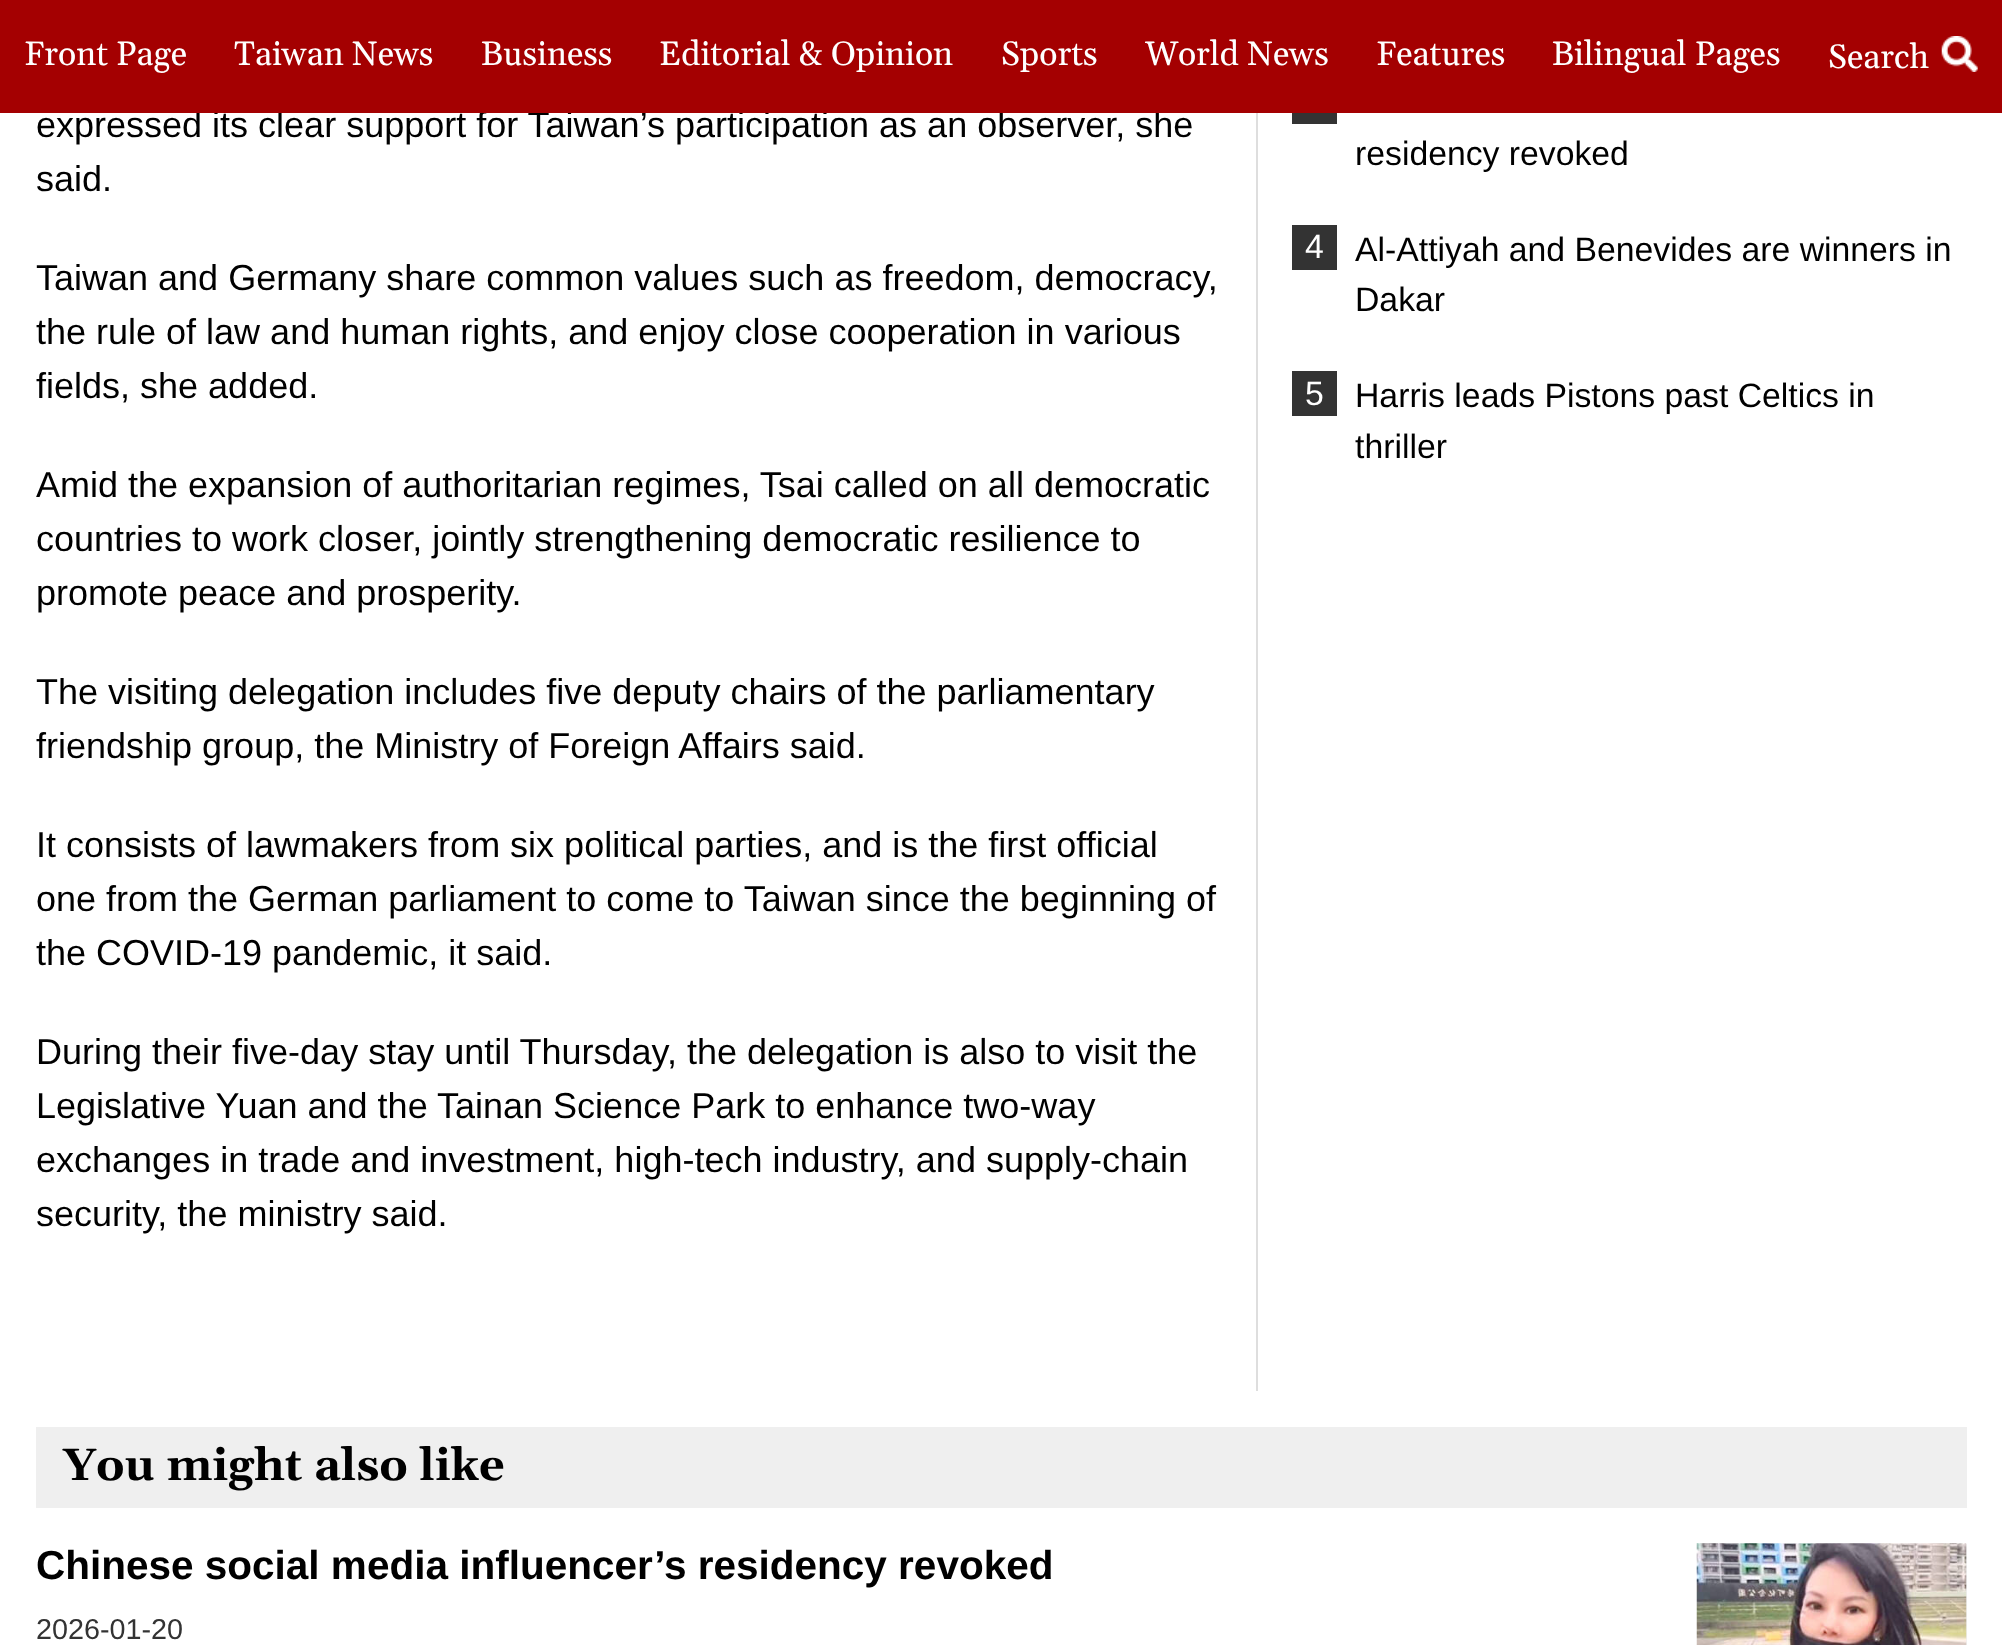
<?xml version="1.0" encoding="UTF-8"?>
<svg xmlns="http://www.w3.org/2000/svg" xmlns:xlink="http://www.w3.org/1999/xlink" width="2002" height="1645">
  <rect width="100%" height="100%" fill="#ffffff" />
  <rect x="1256" y="113" width="2" height="1278" fill="#dedede" />
  <rect x="1292" y="113" width="45" height="11" fill="#333333" />
  <rect x="1292" y="225" width="45" height="45" fill="#333333" />
  <rect x="1292" y="371" width="45" height="45" fill="#333333" />
  <rect x="36" y="1427" width="1931" height="81" fill="#efefef" />
  <rect x="1966" y="1544" width="1" height="101" fill="#efefef" />
  <image x="1696" y="1543" width="271" height="102" xlink:href="image2.png" />
  <text x="36" y="137" style="font-family: Liberation Sans; font-size: 36px; fill: #000000">expressed its clear support for Taiwan’s participation as an observer, she</text>
  <rect width="2002" height="113" fill="#a40001" />
  <image x="1941" y="36" width="37" height="36" xlink:href="image1.png" />
  <text x="1828" y="68" style="font-family: Gelasio; font-size: 33.75px; fill: #ffffff">Search</text>
  <text x="1552" y="65" style="font-family: Gelasio; font-size: 33.75px; fill: #ffffff">Bilingual Pages</text>
  <text x="1376" y="65" style="font-family: Gelasio; font-size: 33.75px; fill: #ffffff">Features</text>
  <text x="1145" y="65" style="font-family: Gelasio; font-size: 33.75px; fill: #ffffff">World News</text>
  <text x="1001" y="65" style="font-family: Gelasio; font-size: 33.75px; fill: #ffffff">Sports</text>
  <text x="659" y="65" style="font-family: Gelasio; font-size: 33.75px; fill: #ffffff">Editorial &amp; Opinion</text>
  <text x="481" y="65" style="font-family: Gelasio; font-size: 33.75px; fill: #ffffff">Business</text>
  <text x="234" y="65" style="font-family: Gelasio; font-size: 33.75px; fill: #ffffff">Taiwan News</text>
  <text x="24" y="65" style="font-family: Gelasio; font-size: 33.75px; fill: #ffffff">Front Page</text>
  <text x="36" y="191" style="font-family: Liberation Sans; font-size: 36px; fill: #000000">said.</text>
  <text x="36" y="290" style="font-family: Liberation Sans; font-size: 36px; fill: #000000">Taiwan and Germany share common values such as freedom, democracy,</text>
  <text x="36" y="344" style="font-family: Liberation Sans; font-size: 36px; fill: #000000">the rule of law and human rights, and enjoy close cooperation in various</text>
  <text x="36" y="398" style="font-family: Liberation Sans; font-size: 36px; fill: #000000">fields, she added.</text>
  <text x="36" y="497" style="font-family: Liberation Sans; font-size: 36px; fill: #000000">Amid the expansion of authoritarian regimes, Tsai called on all democratic</text>
  <text x="36" y="551" style="font-family: Liberation Sans; font-size: 36px; fill: #000000">countries to work closer, jointly strengthening democratic resilience to</text>
  <text x="36" y="605" style="font-family: Liberation Sans; font-size: 36px; fill: #000000">promote peace and prosperity.</text>
  <text x="36" y="704" style="font-family: Liberation Sans; font-size: 36px; fill: #000000">The visiting delegation includes five deputy chairs of the parliamentary</text>
  <text x="36" y="758" style="font-family: Liberation Sans; font-size: 36px; fill: #000000">friendship group, the Ministry of Foreign Affairs said.</text>
  <text x="36" y="857" style="font-family: Liberation Sans; font-size: 36px; fill: #000000">It consists of lawmakers from six political parties, and is the first official</text>
  <text x="36" y="911" style="font-family: Liberation Sans; font-size: 36px; fill: #000000">one from the German parliament to come to Taiwan since the beginning of</text>
  <text x="36" y="965" style="font-family: Liberation Sans; font-size: 36px; fill: #000000">the COVID-19 pandemic, it said.</text>
  <text x="36" y="1064" style="font-family: Liberation Sans; font-size: 36px; fill: #000000">During their five-day stay until Thursday, the delegation is also to visit the</text>
  <text x="36" y="1118" style="font-family: Liberation Sans; font-size: 36px; fill: #000000">Legislative Yuan and the Tainan Science Park to enhance two-way</text>
  <text x="36" y="1172" style="font-family: Liberation Sans; font-size: 36px; fill: #000000">exchanges in trade and investment, high-tech industry, and supply-chain</text>
  <text x="36" y="1226" style="font-family: Liberation Sans; font-size: 36px; fill: #000000">security, the ministry said.</text>
  <text x="1355" y="165" style="font-family: Liberation Sans; font-size: 33.75px; fill: #000000">residency revoked</text>
  <text x="1305" y="258" style="font-family: Liberation Sans; font-size: 33.75px; fill: #ffffff">4</text>
  <text x="1355" y="261" style="font-family: Liberation Sans; font-size: 33.75px; fill: #000000">Al-Attiyah and Benevides are winners in</text>
  <text x="1355" y="311" style="font-family: Liberation Sans; font-size: 33.75px; fill: #000000">Dakar</text>
  <text x="1305" y="405" style="font-family: Liberation Sans; font-size: 33.75px; fill: #ffffff">5</text>
  <text x="1355" y="407" style="font-family: Liberation Sans; font-size: 33.75px; fill: #000000">Harris leads Pistons past Celtics in</text>
  <text x="1355" y="458" style="font-family: Liberation Sans; font-size: 33.75px; fill: #000000">thriller</text>
  <text x="63" y="1480" style="font-family: Gelasio; font-size: 45px; font-weight: bold; fill: #000000">You might also like</text>
  <text x="36" y="1579" style="font-family: Liberation Sans; font-size: 40.5px; font-weight: bold; fill: #000000">Chinese social media influencer’s residency revoked</text>
  <text x="36" y="1639" style="font-family: Liberation Sans; font-size: 28.75px; fill: #333333">2026-01-20</text>
</svg>
